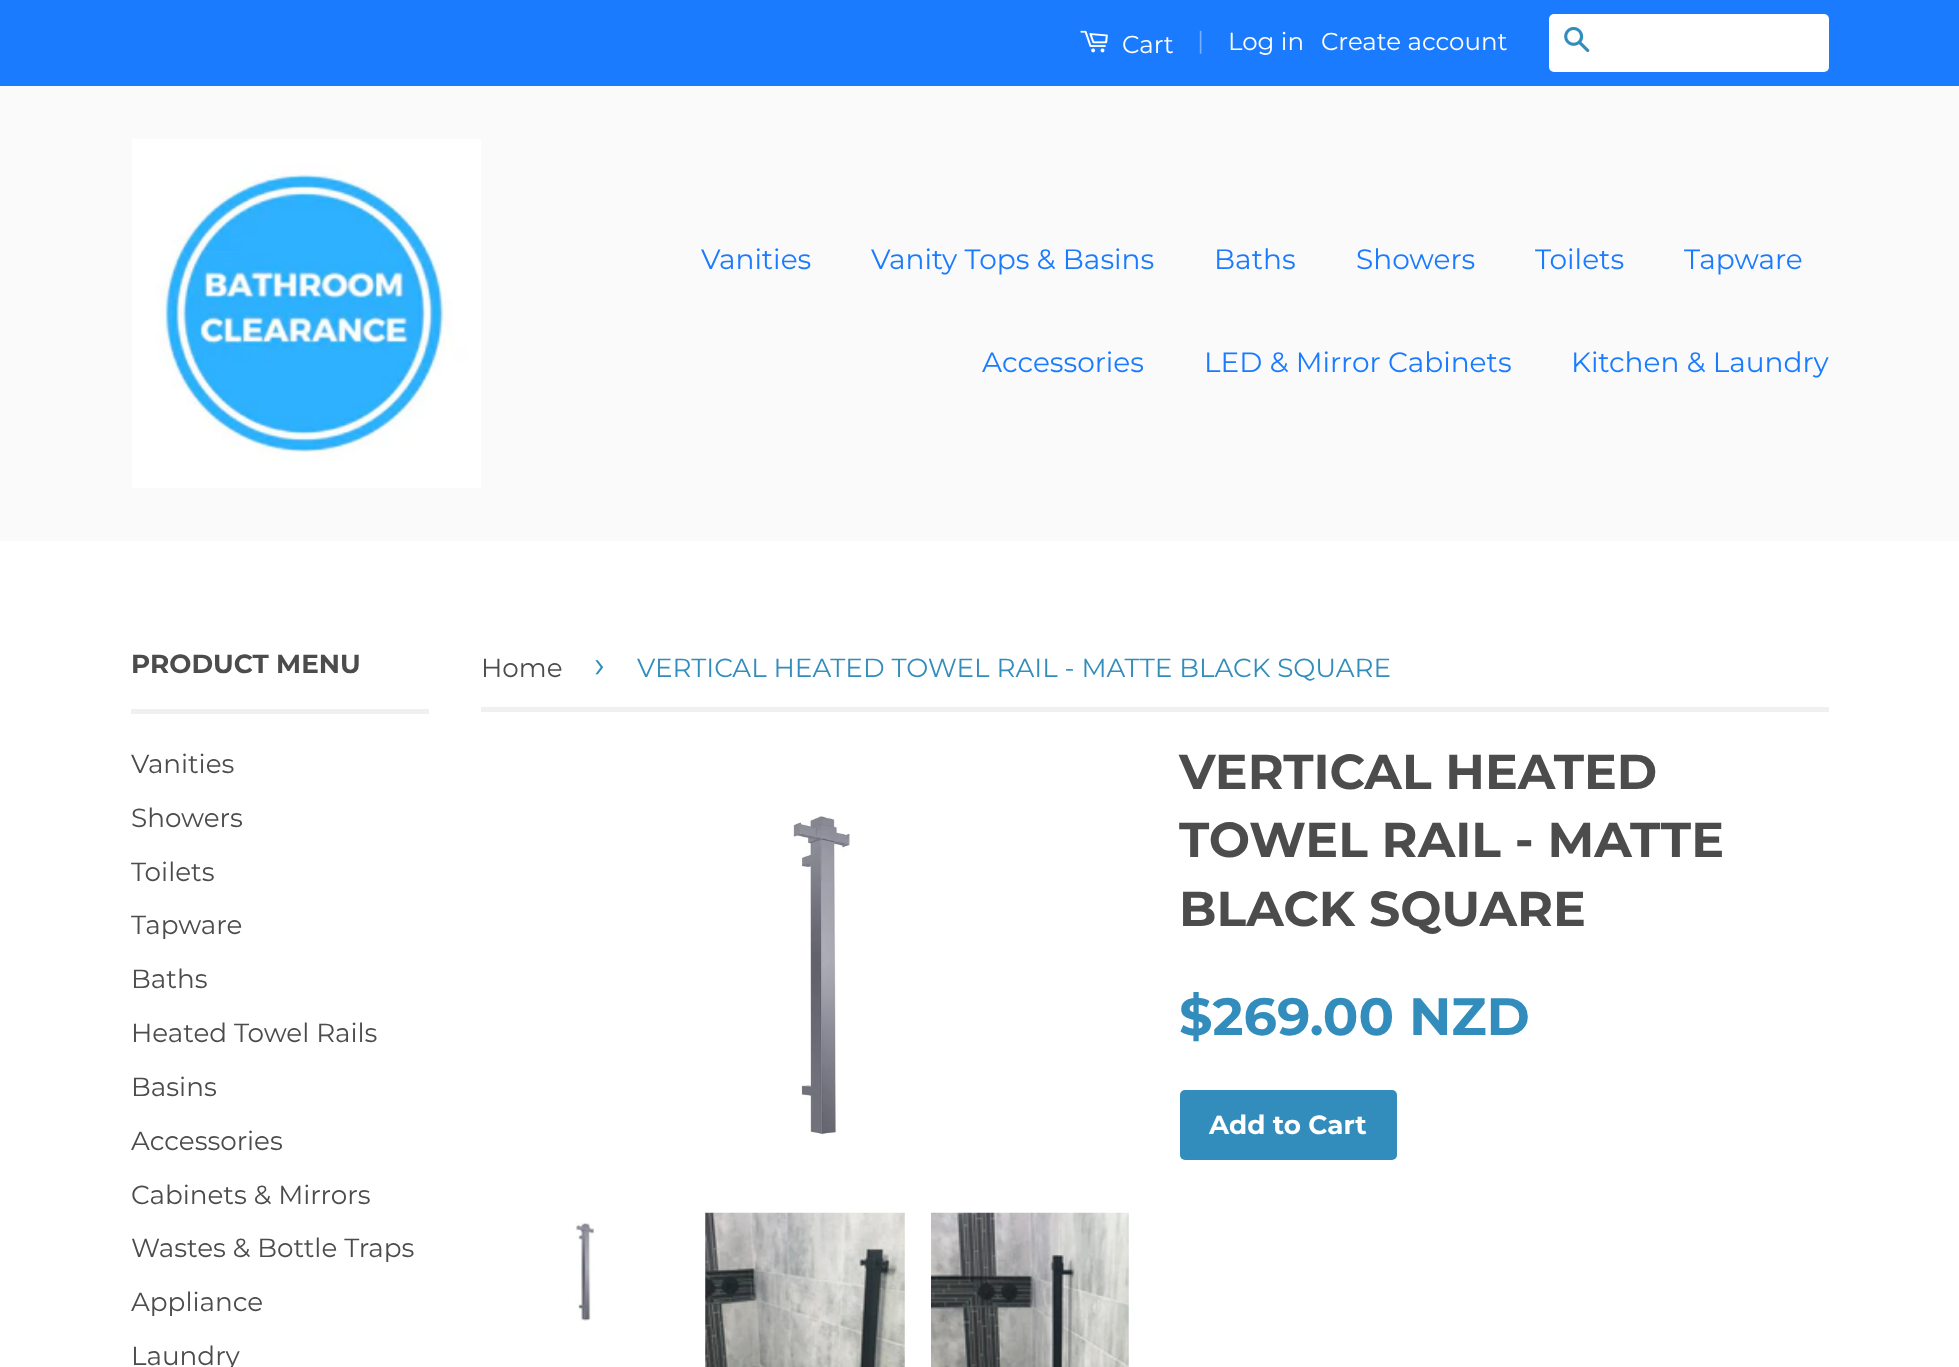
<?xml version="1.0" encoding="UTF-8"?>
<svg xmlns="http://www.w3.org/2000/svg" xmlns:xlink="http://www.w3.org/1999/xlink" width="1959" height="1367">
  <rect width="100%" height="100%" fill="#ffffff" />
  <rect width="1959" height="86" fill="#1a7bff" />
  <image x="1080" y="30" width="28" height="23" xlink:href="image1.png" />
  <rect x="1549" y="14" width="280" height="58" rx="5" fill="#ffffff" />
  <image x="1564" y="27" width="26" height="26" xlink:href="image2.png" />
  <rect y="86" width="1959" height="455" fill="#fafafa" />
  <image x="132" y="139" width="349" height="349" xlink:href="image3.png" />
  <rect x="131" y="709" width="298" height="5" fill="#f0f0f0" />
  <rect x="481" y="707" width="1348" height="5" fill="#f0f0f0" />
  <image x="793" y="816" width="58" height="319" xlink:href="image4.png" />
  <rect x="1180" y="1090" width="217" height="70" rx="5" fill="#338dbc" />
  <image x="575" y="1222" width="20" height="99" xlink:href="image5.png" />
  <image x="705" y="1212" width="200" height="155" xlink:href="image6.png" />
  <image x="931" y="1212" width="198" height="155" xlink:href="image7.png" />
  <text x="1122" y="53" style="font-family: Montserrat; font-size: 24.5px; fill: #ffffff">Cart</text>
  <text x="1197" y="49" style="font-family: Montserrat; font-size: 24.5px; fill: #76b0ff">|</text>
  <text x="1228" y="50" style="font-family: Montserrat; font-size: 24.5px; fill: #ffffff">Log in</text>
  <text x="1321" y="50" style="font-family: Montserrat; font-size: 24.5px; fill: #ffffff">Create account</text>
  <text x="701" y="269" style="font-family: Montserrat; font-size: 28px; fill: #1a7bff">Vanities</text>
  <text x="871" y="269" style="font-family: Montserrat; font-size: 28px; fill: #1a7bff">Vanity Tops &amp; Basins</text>
  <text x="1214" y="269" style="font-family: Montserrat; font-size: 28px; fill: #1a7bff">Baths</text>
  <text x="1356" y="269" style="font-family: Montserrat; font-size: 28px; fill: #1a7bff">Showers</text>
  <text x="1535" y="269" style="font-family: Montserrat; font-size: 28px; fill: #1a7bff">Toilets</text>
  <text x="1684" y="269" style="font-family: Montserrat; font-size: 28px; fill: #1a7bff">Tapware</text>
  <text x="982" y="372" style="font-family: Montserrat; font-size: 28px; fill: #1a7bff">Accessories</text>
  <text x="1204" y="372" style="font-family: Montserrat; font-size: 28px; fill: #1a7bff">LED &amp; Mirror Cabinets</text>
  <text x="1571" y="372" style="font-family: Montserrat; font-size: 28px; fill: #1a7bff">Kitchen &amp; Laundry</text>
  <text x="131" y="673" style="font-family: Montserrat; font-size: 26.25px; font-weight: bold; fill: #4c4c4c">PRODUCT MENU</text>
  <text x="131" y="773" style="font-family: Montserrat; font-size: 26.25px; fill: #4c4c4c">Vanities</text>
  <text x="131" y="827" style="font-family: Montserrat; font-size: 26.25px; fill: #4c4c4c">Showers</text>
  <text x="131" y="881" style="font-family: Montserrat; font-size: 26.25px; fill: #4c4c4c">Toilets</text>
  <text x="131" y="934" style="font-family: Montserrat; font-size: 26.25px; fill: #4c4c4c">Tapware</text>
  <text x="131" y="988" style="font-family: Montserrat; font-size: 26.25px; fill: #4c4c4c">Baths</text>
  <text x="131" y="1042" style="font-family: Montserrat; font-size: 26.25px; fill: #4c4c4c">Heated Towel Rails</text>
  <text x="131" y="1096" style="font-family: Montserrat; font-size: 26.25px; fill: #4c4c4c">Basins</text>
  <text x="131" y="1150" style="font-family: Montserrat; font-size: 26.25px; fill: #4c4c4c">Accessories</text>
  <text x="131" y="1204" style="font-family: Montserrat; font-size: 26.25px; fill: #4c4c4c">Cabinets &amp; Mirrors</text>
  <text x="131" y="1257" style="font-family: Montserrat; font-size: 26.25px; fill: #4c4c4c">Wastes &amp; Bottle Traps</text>
  <text x="131" y="1311" style="font-family: Montserrat; font-size: 26.25px; fill: #4c4c4c">Appliance</text>
  <text x="131" y="1365" style="font-family: Montserrat; font-size: 26.25px; fill: #4c4c4c">Laundry</text>
  <text x="481" y="677" style="font-family: Montserrat; font-size: 26.25px; fill: #4c4c4c">Home</text>
  <text x="594" y="677" style="font-family: Montserrat; font-size: 37px; fill: #338dbc">›</text>
  <text x="637" y="677" style="font-family: Montserrat; font-size: 26.25px; fill: #338dbc">VERTICAL HEATED TOWEL RAIL - MATTE BLACK SQUARE</text>
  <text x="1179" y="789" style="font-family: Montserrat; font-size: 49px; font-weight: bold; fill: #4c4c4c">VERTICAL HEATED</text>
  <text x="1179" y="857" style="font-family: Montserrat; font-size: 49px; font-weight: bold; fill: #4c4c4c">TOWEL RAIL - MATTE</text>
  <text x="1179" y="926" style="font-family: Montserrat; font-size: 49px; font-weight: bold; fill: #4c4c4c">BLACK SQUARE</text>
  <text x="1179" y="1035" style="font-family: Montserrat; font-size: 52.5px; font-weight: bold; fill: #338dbc">$269.00 NZD</text>
  <text x="1209" y="1134" style="font-family: Montserrat; font-size: 26.25px; font-weight: bold; fill: #ffffff">Add to Cart</text>
</svg>
